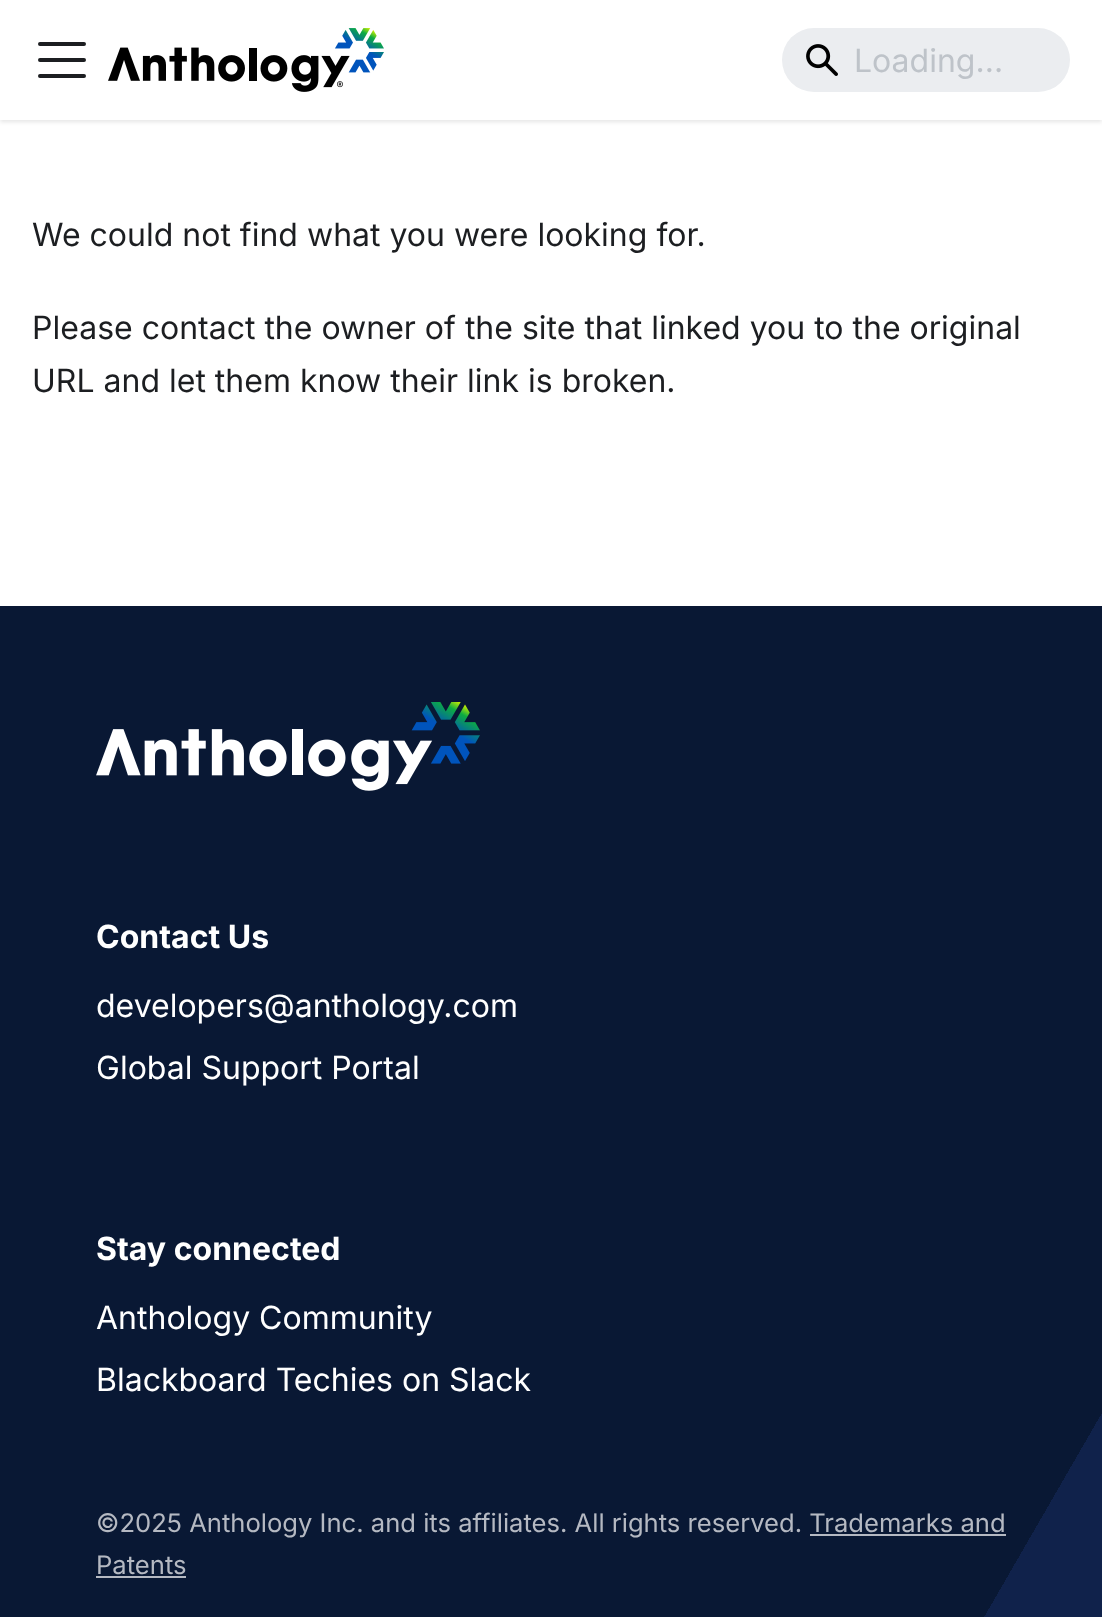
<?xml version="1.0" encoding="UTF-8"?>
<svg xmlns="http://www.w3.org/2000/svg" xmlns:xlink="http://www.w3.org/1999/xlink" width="1102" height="1617">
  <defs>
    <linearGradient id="g1" gradientUnits="userSpaceOnUse" x1="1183" y1="1477" x2="-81" y2="747"><stop offset="0.07" stop-color="#10224b" /><stop offset="0.07" stop-color="#091834" /></linearGradient>
  </defs>
  <rect width="100%" height="100%" fill="#ffffff" />
  <rect y="2" width="1102" height="120" fill="#000000" fill-opacity="0.1" filter="blur(2px)" />
  <rect width="1102" height="120" fill="#ffffff" />
  <path d="M 40 44 h 44 m -44 16 h 44 m -44 16 h 44" fill="none" stroke="#1c1e21" stroke-width="4" stroke-linecap="round" />
  <image x="108" y="28" width="276" height="64" xlink:href="image1.png" />
  <rect x="782" y="28" width="288" height="64" rx="32" fill="#ebedf0" />
  <image x="806" y="44" width="32" height="32" xlink:href="image2.png" />
  <rect y="606" width="1102" height="1011" fill="url(#g1)" />
  <image x="96" y="702" width="384" height="89" xlink:href="image3.png" />
  <rect x="810" y="1534" width="196" height="2" fill="#b5b9c2" />
  <rect x="96" y="1576" width="90" height="2" fill="#b5b9c2" />
  <text x="854" y="72" style="font-family: Inter; font-size: 32px; fill: #bec3c9">Loading...</text>
  <text x="32" y="246" style="font-family: Inter; font-size: 32px; fill: #1c1e21">We could not find what you were looking for.</text>
  <text x="32" y="339" style="font-family: Inter; font-size: 32px; fill: #1c1e21">Please contact the owner of the site that linked you to the original</text>
  <text x="32" y="392" style="font-family: Inter; font-size: 32px; fill: #1c1e21">URL and let them know their link is broken.</text>
  <text x="96" y="948" style="font-family: Inter; font-size: 32px; font-weight: bold; fill: #ffffff">Contact Us</text>
  <text x="96" y="1017" style="font-family: Inter; font-size: 32px; fill: #ffffff">developers@anthology.com</text>
  <text x="96" y="1079" style="font-family: Inter; font-size: 32px; fill: #ffffff">Global Support Portal</text>
  <text x="96" y="1260" style="font-family: Inter; font-size: 32px; font-weight: bold; fill: #ffffff">Stay connected</text>
  <text x="96" y="1329" style="font-family: Inter; font-size: 32px; fill: #ffffff">Anthology Community</text>
  <text x="96" y="1391" style="font-family: Inter; font-size: 32px; fill: #ffffff">Blackboard Techies on Slack</text>
  <text x="96" y="1532" style="font-family: Inter; font-size: 25.6px; fill: #b5b9c2">©2025 Anthology Inc. and its affiliates. All rights reserved. Trademarks and</text>
  <text x="96" y="1574" style="font-family: Inter; font-size: 25.6px; fill: #b5b9c2">Patents</text>
</svg>
